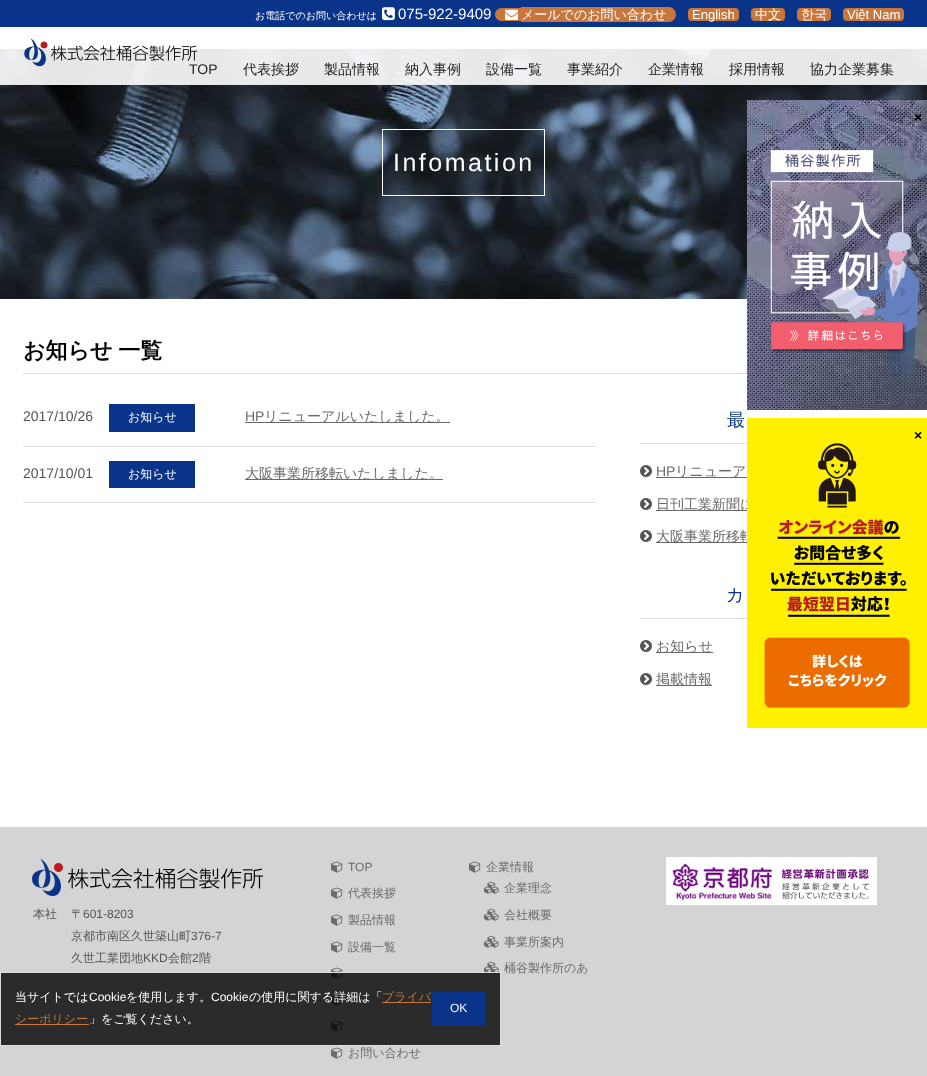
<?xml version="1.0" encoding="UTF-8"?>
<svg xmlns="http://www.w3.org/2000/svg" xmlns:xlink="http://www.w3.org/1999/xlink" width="927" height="1076">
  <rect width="100%" height="100%" fill="#ffffff" />
  <image x="0" y="49" width="927" height="250" xlink:href="image4.png" />
  <rect y="49" width="927" height="35" fill="#ffffff" fill-opacity="0.9" />
  <rect y="84" width="927" height="1" fill="#e7e7e7" />
  <rect width="927" height="27" fill="#0a338a" />
  <image x="382" y="7" width="13" height="14" xlink:href="image1.png" />
  <path d="M 501.5 8 h 19.5 v 13 h -19.5 c -3.5 0 -6.5 -3 -6.5 -6.5 c 0 -3.5 3 -6.5 6.5 -6.5 z" fill="#c7773c" />
  <path d="M 521 7 h 147.5 c 4 0 7.5 3.5 7.5 7.5 c 0 4 -3.5 7.5 -7.5 7.5 h -147.5 z" fill="#c7773c" />
  <image x="505" y="9" width="13" height="11" xlink:href="image2.png" />
  <rect x="688" y="8" width="51" height="13" rx="4" fill="#c7773c" />
  <rect x="751" y="8" width="34" height="13" rx="4" fill="#c7773c" />
  <rect x="797" y="8" width="34" height="13" rx="4" fill="#c7773c" />
  <rect x="843" y="8" width="61" height="13" rx="4" fill="#c7773c" />
  <image x="24" y="38" width="174" height="29" xlink:href="image3.png" />
  <rect x="382.5" y="129.5" width="162" height="66" fill="none" stroke="#ffffff" />
  <rect x="23" y="373" width="724" height="1" fill="#dddddd" />
  <rect x="23" y="446" width="573" height="1" fill="#dddddd" />
  <rect x="109" y="404" width="86" height="28" fill="#0a338a" />
  <rect x="245" y="422" width="205" height="1" fill="#6a6a6a" />
  <rect x="23" y="502" width="573" height="1" fill="#dddddd" />
  <rect x="109" y="461" width="86" height="27" fill="#0a338a" />
  <rect x="245" y="479" width="198" height="1" fill="#6a6a6a" />
  <rect x="640" y="443" width="107" height="1" fill="#dddddd" />
  <image x="640" y="465" width="12" height="12" xlink:href="image5.png" />
  <rect x="656" y="477" width="91" height="1" fill="#6a6a6a" />
  <image x="640" y="498" width="12" height="12" xlink:href="image5.png" />
  <rect x="656" y="510" width="91" height="1" fill="#6a6a6a" />
  <image x="640" y="530" width="12" height="12" xlink:href="image5.png" />
  <rect x="656" y="542" width="91" height="1" fill="#6a6a6a" />
  <rect x="640" y="618" width="107" height="1" fill="#dddddd" />
  <image x="640" y="640" width="12" height="12" xlink:href="image5.png" />
  <rect x="656" y="652" width="57" height="1" fill="#6a6a6a" />
  <image x="640" y="673" width="12" height="12" xlink:href="image5.png" />
  <rect x="656" y="685" width="56" height="1" fill="#6a6a6a" />
  <image x="747" y="100" width="180" height="310" xlink:href="image6.png" />
  <rect y="827" width="927" height="249" fill="#d4d4d4" />
  <image x="32" y="858" width="232" height="39" xlink:href="image8.png" />
  <image x="331" y="861" width="12" height="12" xlink:href="image9.png" />
  <image x="331" y="887" width="12" height="12" xlink:href="image9.png" />
  <image x="331" y="914" width="12" height="12" xlink:href="image9.png" />
  <image x="331" y="941" width="12" height="12" xlink:href="image9.png" />
  <image x="331" y="967" width="12" height="12" xlink:href="image9.png" />
  <image x="331" y="994" width="12" height="12" xlink:href="image9.png" />
  <image x="331" y="1020" width="12" height="12" xlink:href="image9.png" />
  <image x="331" y="1047" width="12" height="12" xlink:href="image9.png" />
  <image x="469" y="861" width="12" height="12" xlink:href="image9.png" />
  <image x="484" y="881" width="15" height="13" xlink:href="image10.png" />
  <image x="484" y="908" width="15" height="13" xlink:href="image10.png" />
  <image x="484" y="935" width="15" height="13" xlink:href="image10.png" />
  <image x="484" y="961" width="15" height="13" xlink:href="image10.png" />
  <image x="666" y="857" width="211" height="48" xlink:href="image11.png" />
  <rect x="0.5" y="972.5" width="500" height="73" fill="#000000" fill-opacity="0.8" stroke="#dddddd" />
  <rect x="382" y="1002" width="49" height="1" fill="#c7773c" />
  <rect x="15" y="1024" width="74" height="1" fill="#c7773c" />
  <rect x="432" y="992" width="53" height="34" fill="#0a338a" />
  <text x="255" y="19" style="font-family: WenQuanYi Zen Hei; font-size: 10px; font-weight: 500; fill: #ffffff">お電話でのお問い合わせは</text>
  <text x="398" y="19" style="font-family: Liberation Sans; font-size: 15px; fill: #ffffff">075-922-9409</text>
  <text x="521" y="19" style="font-family: WenQuanYi Zen Hei; font-size: 13px; font-weight: 500; fill: #ffffff">メールでのお問い合わせ</text>
  <text x="692" y="19" style="font-family: Liberation Sans; font-size: 13px; fill: #ffffff">English</text>
  <text x="755" y="19" style="font-family: WenQuanYi Zen Hei; font-size: 13px; font-weight: 500; fill: #ffffff">中文</text>
  <text x="801" y="19" style="font-family: WenQuanYi Zen Hei; font-size: 13px; font-weight: 500; fill: #ffffff">한국</text>
  <text x="847" y="19" style="font-family: Liberation Sans; font-size: 13px; fill: #ffffff">Việt Nam</text>
  <text x="189" y="74" style="font-family: Liberation Sans; font-size: 14px; fill: #222222">TOP</text>
  <text x="243" y="74" style="font-family: WenQuanYi Zen Hei; font-size: 14px; font-weight: 500; fill: #222222">代表挨拶</text>
  <text x="324" y="74" style="font-family: WenQuanYi Zen Hei; font-size: 14px; font-weight: 500; fill: #222222">製品情報</text>
  <text x="405" y="74" style="font-family: WenQuanYi Zen Hei; font-size: 14px; font-weight: 500; fill: #222222">納入事例</text>
  <text x="486" y="74" style="font-family: WenQuanYi Zen Hei; font-size: 14px; font-weight: 500; fill: #222222">設備一覧</text>
  <text x="567" y="74" style="font-family: WenQuanYi Zen Hei; font-size: 14px; font-weight: 500; fill: #222222">事業紹介</text>
  <text x="648" y="74" style="font-family: WenQuanYi Zen Hei; font-size: 14px; font-weight: 500; fill: #222222">企業情報</text>
  <text x="729" y="74" style="font-family: WenQuanYi Zen Hei; font-size: 14px; font-weight: 500; fill: #222222">採用情報</text>
  <text x="810" y="74" style="font-family: WenQuanYi Zen Hei; font-size: 14px; font-weight: 500; fill: #222222">協力企業募集</text>
  <text x="393" y="171" style="font-family: Liberation Sans; font-size: 25px; letter-spacing: 2.5px; fill: #ffffff">Infomation</text>
  <text x="23" y="358" word-spacing="-1" style="font-family: WenQuanYi Zen Hei; font-size: 22px; font-weight: bold; fill: #000000">お知らせ 一覧</text>
  <text x="23" y="421" style="font-family: Liberation Sans; font-size: 14px; fill: #555555">2017/10/26</text>
  <text x="128" y="421" style="font-family: WenQuanYi Zen Hei; font-size: 12px; font-weight: 500; fill: #ffffff">お知らせ</text>
  <text x="245" y="421" style="font-family: Liberation Sans; font-size: 14px; fill: #6a6a6a">HP</text>
  <text x="264" y="421" style="font-family: WenQuanYi Zen Hei; font-size: 14px; font-weight: 500; fill: #6a6a6a">リニューアルいたしました。</text>
  <text x="23" y="478" style="font-family: Liberation Sans; font-size: 14px; fill: #555555">2017/10/01</text>
  <text x="128" y="478" style="font-family: WenQuanYi Zen Hei; font-size: 12px; font-weight: 500; fill: #ffffff">お知らせ</text>
  <text x="245" y="478" style="font-family: WenQuanYi Zen Hei; font-size: 14px; font-weight: 500; fill: #6a6a6a">大阪事業所移転いたしました。</text>
  <text x="727" y="426" style="font-family: WenQuanYi Zen Hei; font-size: 18px; font-weight: 500; fill: #0a338a">最</text>
  <text x="656" y="476" style="font-family: Liberation Sans; font-size: 14px; fill: #6a6a6a">HP</text>
  <text x="675" y="476" style="font-family: WenQuanYi Zen Hei; font-size: 14px; font-weight: 500; fill: #6a6a6a">リニューア</text>
  <text x="656" y="509" style="font-family: WenQuanYi Zen Hei; font-size: 14px; font-weight: 500; fill: #6a6a6a">日刊工業新聞に</text>
  <text x="656" y="541" style="font-family: WenQuanYi Zen Hei; font-size: 14px; font-weight: 500; fill: #6a6a6a">大阪事業所移転</text>
  <text x="726" y="601" style="font-family: WenQuanYi Zen Hei; font-size: 18px; font-weight: 500; fill: #0a338a">カ</text>
  <text x="656" y="651" style="font-family: WenQuanYi Zen Hei; font-size: 14px; font-weight: 500; fill: #6a6a6a">お知らせ</text>
  <text x="656" y="684" style="font-family: WenQuanYi Zen Hei; font-size: 14px; font-weight: 500; fill: #6a6a6a">掲載情報</text>
  <text x="914" y="122" style="font-family: Liberation Sans; font-size: 14px; font-weight: bold; fill: #000000">×</text>
  <image x="747" y="418" width="180" height="310" xlink:href="image7.png" />
  <text x="914" y="440" style="font-family: Liberation Sans; font-size: 14px; font-weight: bold; fill: #000000">×</text>
  <text x="33" y="918" style="font-family: WenQuanYi Zen Hei; font-size: 12px; font-weight: 500; fill: #555555">本社</text>
  <text x="71" y="918" style="font-family: WenQuanYi Zen Hei; font-size: 12px; font-weight: 500; fill: #555555">〒</text>
  <text x="83" y="918" style="font-family: Liberation Sans; font-size: 12px; fill: #555555">601-8203</text>
  <text x="71" y="940" style="font-family: WenQuanYi Zen Hei; font-size: 12px; font-weight: 500; fill: #555555">京都市南区久世築山町</text>
  <text x="191" y="940" style="font-family: Liberation Sans; font-size: 12px; fill: #555555">376-7</text>
  <text x="71" y="962" style="font-family: WenQuanYi Zen Hei; font-size: 12px; font-weight: 500; fill: #555555">久世工業団地</text>
  <text x="143" y="962" style="font-family: Liberation Sans; font-size: 12px; fill: #555555">KKD</text>
  <text x="168" y="962" style="font-family: WenQuanYi Zen Hei; font-size: 12px; font-weight: 500; fill: #555555">会館</text>
  <text x="192" y="962" style="font-family: Liberation Sans; font-size: 12px; fill: #555555">2</text>
  <text x="199" y="962" style="font-family: WenQuanYi Zen Hei; font-size: 12px; font-weight: 500; fill: #555555">階</text>
  <text x="348" y="871" style="font-family: Liberation Sans; font-size: 12px; fill: #6a6a6a">TOP</text>
  <text x="348" y="897" style="font-family: WenQuanYi Zen Hei; font-size: 12px; font-weight: 500; fill: #6a6a6a">代表挨拶</text>
  <text x="348" y="924" style="font-family: WenQuanYi Zen Hei; font-size: 12px; font-weight: 500; fill: #6a6a6a">製品情報</text>
  <text x="348" y="951" style="font-family: WenQuanYi Zen Hei; font-size: 12px; font-weight: 500; fill: #6a6a6a">設備一覧</text>
  <text x="348" y="1057" style="font-family: WenQuanYi Zen Hei; font-size: 12px; font-weight: 500; fill: #6a6a6a">お問い合わせ</text>
  <text x="486" y="871" style="font-family: WenQuanYi Zen Hei; font-size: 12px; font-weight: 500; fill: #6a6a6a">企業情報</text>
  <text x="504" y="892" style="font-family: WenQuanYi Zen Hei; font-size: 12px; font-weight: 500; fill: #6a6a6a">企業理念</text>
  <text x="504" y="919" style="font-family: WenQuanYi Zen Hei; font-size: 12px; font-weight: 500; fill: #6a6a6a">会社概要</text>
  <text x="504" y="946" style="font-family: WenQuanYi Zen Hei; font-size: 12px; font-weight: 500; fill: #6a6a6a">事業所案内</text>
  <text x="504" y="972" style="font-family: WenQuanYi Zen Hei; font-size: 12px; font-weight: 500; fill: #6a6a6a">桶谷製作所のあ</text>
  <text x="15" y="1001" style="font-family: WenQuanYi Zen Hei; font-size: 12px; font-weight: 500; fill: #ffffff">当サイトでは</text>
  <text x="89" y="1001" style="font-family: Liberation Sans; font-size: 12px; fill: #ffffff">Cookie</text>
  <text x="126" y="1001" style="font-family: WenQuanYi Zen Hei; font-size: 12px; font-weight: 500; fill: #ffffff">を使用します。</text>
  <text x="211" y="1001" style="font-family: Liberation Sans; font-size: 12px; fill: #ffffff">Cookie</text>
  <text x="249" y="1001" style="font-family: WenQuanYi Zen Hei; font-size: 12px; font-weight: 500; fill: #ffffff">の使用に関する詳細は「</text>
  <text x="382" y="1001" style="font-family: WenQuanYi Zen Hei; font-size: 12px; font-weight: 500; fill: #c7773c">プライバ</text>
  <text x="15" y="1023" style="font-family: WenQuanYi Zen Hei; font-size: 12px; font-weight: 500; fill: #c7773c">シーポリシー</text>
  <text x="89" y="1023" style="font-family: WenQuanYi Zen Hei; font-size: 12px; font-weight: 500; fill: #ffffff">」をご覧ください。</text>
  <text x="450" y="1012" style="font-family: Liberation Sans; font-size: 12px; fill: #ffffff">OK</text>
</svg>
